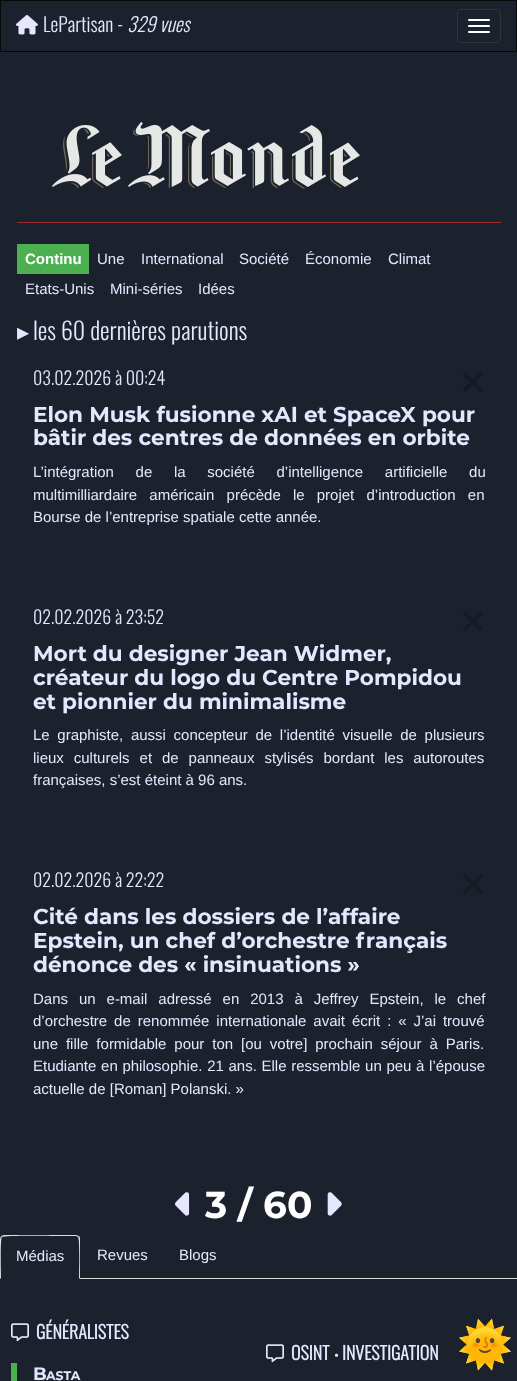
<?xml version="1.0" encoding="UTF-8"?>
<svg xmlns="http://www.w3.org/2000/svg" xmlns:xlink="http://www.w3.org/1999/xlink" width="517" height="1381">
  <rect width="100%" height="100%" fill="#1c212e" />
  <rect x="0.5" y="0.5" width="516" height="51" fill="none" stroke="#080808" />
  <image x="16" y="15" width="22" height="20" xlink:href="image1.png" />
  <rect x="457.5" y="9.5" width="43" height="33" rx="3.5" fill="none" stroke="#333333" />
  <rect x="468" y="19" width="22" height="2" rx="1" fill="#ffffff" />
  <rect x="468" y="25" width="22" height="2" rx="1" fill="#ffffff" />
  <rect x="468" y="31" width="22" height="2" rx="1" fill="#ffffff" />
  <image x="52" y="122" width="308" height="67" xlink:href="image2.png" />
  <rect x="17" y="222" width="484" height="1" fill="#a02b2b" />
  <rect x="17" y="244" width="72" height="30" fill="#4caf50" />
  <image x="463" y="372" width="20" height="20" xlink:href="image3.png" />
  <image x="463" y="611" width="20" height="20" xlink:href="image3.png" />
  <image x="463" y="874" width="20" height="20" xlink:href="image3.png" />
  <image x="175" y="1192" width="15" height="24" xlink:href="image4.png" />
  <image x="327" y="1192" width="15" height="24" xlink:href="image5.png" />
  <rect x="80" y="1278" width="437" height="1" fill="#dddddd" />
  <path d="M 4 1235 l -3 1 l 1 1 c 2 -2 55 -1 62 -1 h 12 l 2 1 l 1 -1 l -3 -1 z" fill="#dddddd" />
  <path d="M 80 1279 v -40 c 0 -1 0 -2 -1 -3 l -1 1 c 2 2 1 36 1 41 z" fill="#dddddd" />
  <path d="M 0 1279 l 1 -1 c 0 -5 -1 -39 1 -41 l -1 -1 l -1 3 z" fill="#dddddd" />
  <image x="11" y="1323" width="18" height="19" xlink:href="image6.png" />
  <image x="266" y="1344" width="18" height="19" xlink:href="image6.png" />
  <rect x="11" y="1363" width="6" height="18" fill="#4caf50" />
  <text x="43" y="32" style="font-family: Oswald; font-size: 19.5px; font-weight: 300; fill: #e6e6ff">LePartisan -</text>
  <text x="127" y="32" style="font-family: Oswald; font-size: 19.5px; font-weight: 300; font-style: italic; fill: #e6e6ff">329 vues</text>
  <text x="25" y="264" style="font-family: Liberation Sans; font-size: 15px; font-weight: bold; fill: #ffffff">Continu</text>
  <text x="97" y="264" style="font-family: Liberation Sans; font-size: 15px; fill: #e6e6ff">Une</text>
  <text x="141" y="264" style="font-family: Liberation Sans; font-size: 15px; fill: #e6e6ff">International</text>
  <text x="239" y="264" style="font-family: Liberation Sans; font-size: 15px; fill: #e6e6ff">Société</text>
  <text x="305" y="264" style="font-family: Liberation Sans; font-size: 15px; fill: #e6e6ff">Économie</text>
  <text x="388" y="264" style="font-family: Liberation Sans; font-size: 15px; fill: #e6e6ff">Climat</text>
  <text x="25" y="294" style="font-family: Liberation Sans; font-size: 15px; fill: #e6e6ff">Etats-Unis</text>
  <text x="110" y="294" style="font-family: Liberation Sans; font-size: 15px; fill: #e6e6ff">Mini-séries</text>
  <text x="198" y="294" style="font-family: Liberation Sans; font-size: 15px; fill: #e6e6ff">Idées</text>
  <text x="17" y="340" style="font-family: DejaVu Sans; font-size: 24px; fill: #e6e6ff">▸</text>
  <text x="33" y="340" style="font-family: Oswald; font-size: 24px; font-weight: 300; fill: #e6e6ff">les 60 dernières parutions</text>
  <text x="33" y="385" style="font-family: Oswald; font-size: 18px; font-weight: 300; fill: #e6e6ff">03.02.2026 à 00:24</text>
  <text x="33" y="422" style="font-family: Montserrat; font-size: 21.6px; font-weight: bold; fill: #e6e6ff">Elon Musk fusionne xAI et SpaceX pour</text>
  <text x="33" y="445" style="font-family: Montserrat; font-size: 21.6px; font-weight: bold; fill: #e6e6ff">bâtir des centres de données en orbite</text>
  <text x="33" y="477" word-spacing="17.5" style="font-family: Liberation Sans; font-size: 15px; fill: #e6e6ff">L’intégration de la société d’intelligence artificielle du</text>
  <text x="33" y="500" word-spacing="8" style="font-family: Liberation Sans; font-size: 15px; fill: #e6e6ff">multimilliardaire américain précède le projet d’introduction en</text>
  <text x="33" y="522" style="font-family: Liberation Sans; font-size: 15px; fill: #e6e6ff">Bourse de l’entreprise spatiale cette année.</text>
  <text x="33" y="624" style="font-family: Oswald; font-size: 18px; font-weight: 300; fill: #e6e6ff">02.02.2026 à 23:52</text>
  <text x="33" y="661" style="font-family: Montserrat; font-size: 21.6px; font-weight: bold; fill: #e6e6ff">Mort du designer Jean Widmer,</text>
  <text x="33" y="685" style="font-family: Montserrat; font-size: 21.6px; font-weight: bold; fill: #e6e6ff">créateur du logo du Centre Pompidou</text>
  <text x="33" y="709" style="font-family: Montserrat; font-size: 21.6px; font-weight: bold; fill: #e6e6ff">et pionnier du minimalisme</text>
  <text x="33" y="740" word-spacing="3.5" style="font-family: Liberation Sans; font-size: 15px; fill: #e6e6ff">Le graphiste, aussi concepteur de l’identité visuelle de plusieurs</text>
  <text x="33" y="763" word-spacing="5.75" style="font-family: Liberation Sans; font-size: 15px; fill: #e6e6ff">lieux culturels et de panneaux stylisés bordant les autoroutes</text>
  <text x="33" y="785" style="font-family: Liberation Sans; font-size: 15px; fill: #e6e6ff">françaises, s’est éteint à 96 ans.</text>
  <text x="33" y="887" style="font-family: Oswald; font-size: 18px; font-weight: 300; fill: #e6e6ff">02.02.2026 à 22:22</text>
  <text x="33" y="924" style="font-family: Montserrat; font-size: 21.6px; font-weight: bold; fill: #e6e6ff">Cité dans les dossiers de l’affaire</text>
  <text x="33" y="948" style="font-family: Montserrat; font-size: 21.6px; font-weight: bold; fill: #e6e6ff">Epstein, un chef d’orchestre français</text>
  <text x="33" y="972" style="font-family: Montserrat; font-size: 21.6px; font-weight: bold; fill: #e6e6ff">dénonce des « insinuations »</text>
  <text x="33" y="1004" word-spacing="6.75" style="font-family: Liberation Sans; font-size: 15px; fill: #e6e6ff">Dans un e-mail adressé en 2013 à Jeffrey Epstein, le chef</text>
  <text x="33" y="1026" word-spacing="2.75" style="font-family: Liberation Sans; font-size: 15px; fill: #e6e6ff">d’orchestre de renommée internationale avait écrit : « J’ai trouvé</text>
  <text x="33" y="1049" word-spacing="3.75" style="font-family: Liberation Sans; font-size: 15px; fill: #e6e6ff">une fille formidable pour ton [ou votre] prochain séjour à Paris.</text>
  <text x="33" y="1071" word-spacing="0.5" style="font-family: Liberation Sans; font-size: 15px; fill: #e6e6ff">Etudiante en philosophie. 21 ans. Elle ressemble un peu à l’épouse</text>
  <text x="33" y="1094" style="font-family: Liberation Sans; font-size: 15px; fill: #e6e6ff">actuelle de [Roman] Polanski. »</text>
  <text x="205" y="1218" style="font-family: Montserrat; font-size: 37.5px; font-weight: bold; fill: #ffffff">3 / 60</text>
  <text x="16" y="1261" style="font-family: Liberation Sans; font-size: 15px; fill: #e6e6ff">Médias</text>
  <text x="97" y="1260" style="font-family: Liberation Sans; font-size: 15px; fill: #e6e6ff">Revues</text>
  <text x="179" y="1260" style="font-family: Liberation Sans; font-size: 15px; fill: #e6e6ff">Blogs</text>
  <text x="36" y="1339" style="font-family: Oswald; font-size: 18px; font-weight: bold; fill: #e6e6ff">GÉNÉRALISTES</text>
  <text x="291" y="1360" style="font-family: Oswald; font-size: 18px; font-weight: bold; fill: #e6e6ff">OSINT</text>
  <text x="334" y="1360" style="font-family: Noto Sans; font-size: 18px; font-weight: bold; fill: #e6e6ff">‧</text>
  <text x="342" y="1360" style="font-family: Oswald; font-size: 18px; font-weight: bold; fill: #e6e6ff">INVESTIGATION</text>
  <text x="33" y="1380" style="font-family: Montserrat; font-size: 18px; font-weight: bold; fill: #e6e6ff">B</text>
  <text x="46" y="1380" style="font-family: Montserrat; font-size: 12.5px; font-weight: bold; fill: #e6e6ff">ASTA</text>
  <text x="457" y="1360" style="font-family: Noto Color Emoji; font-size: 45px; fill: #e6e6ff">🌞</text>
</svg>
